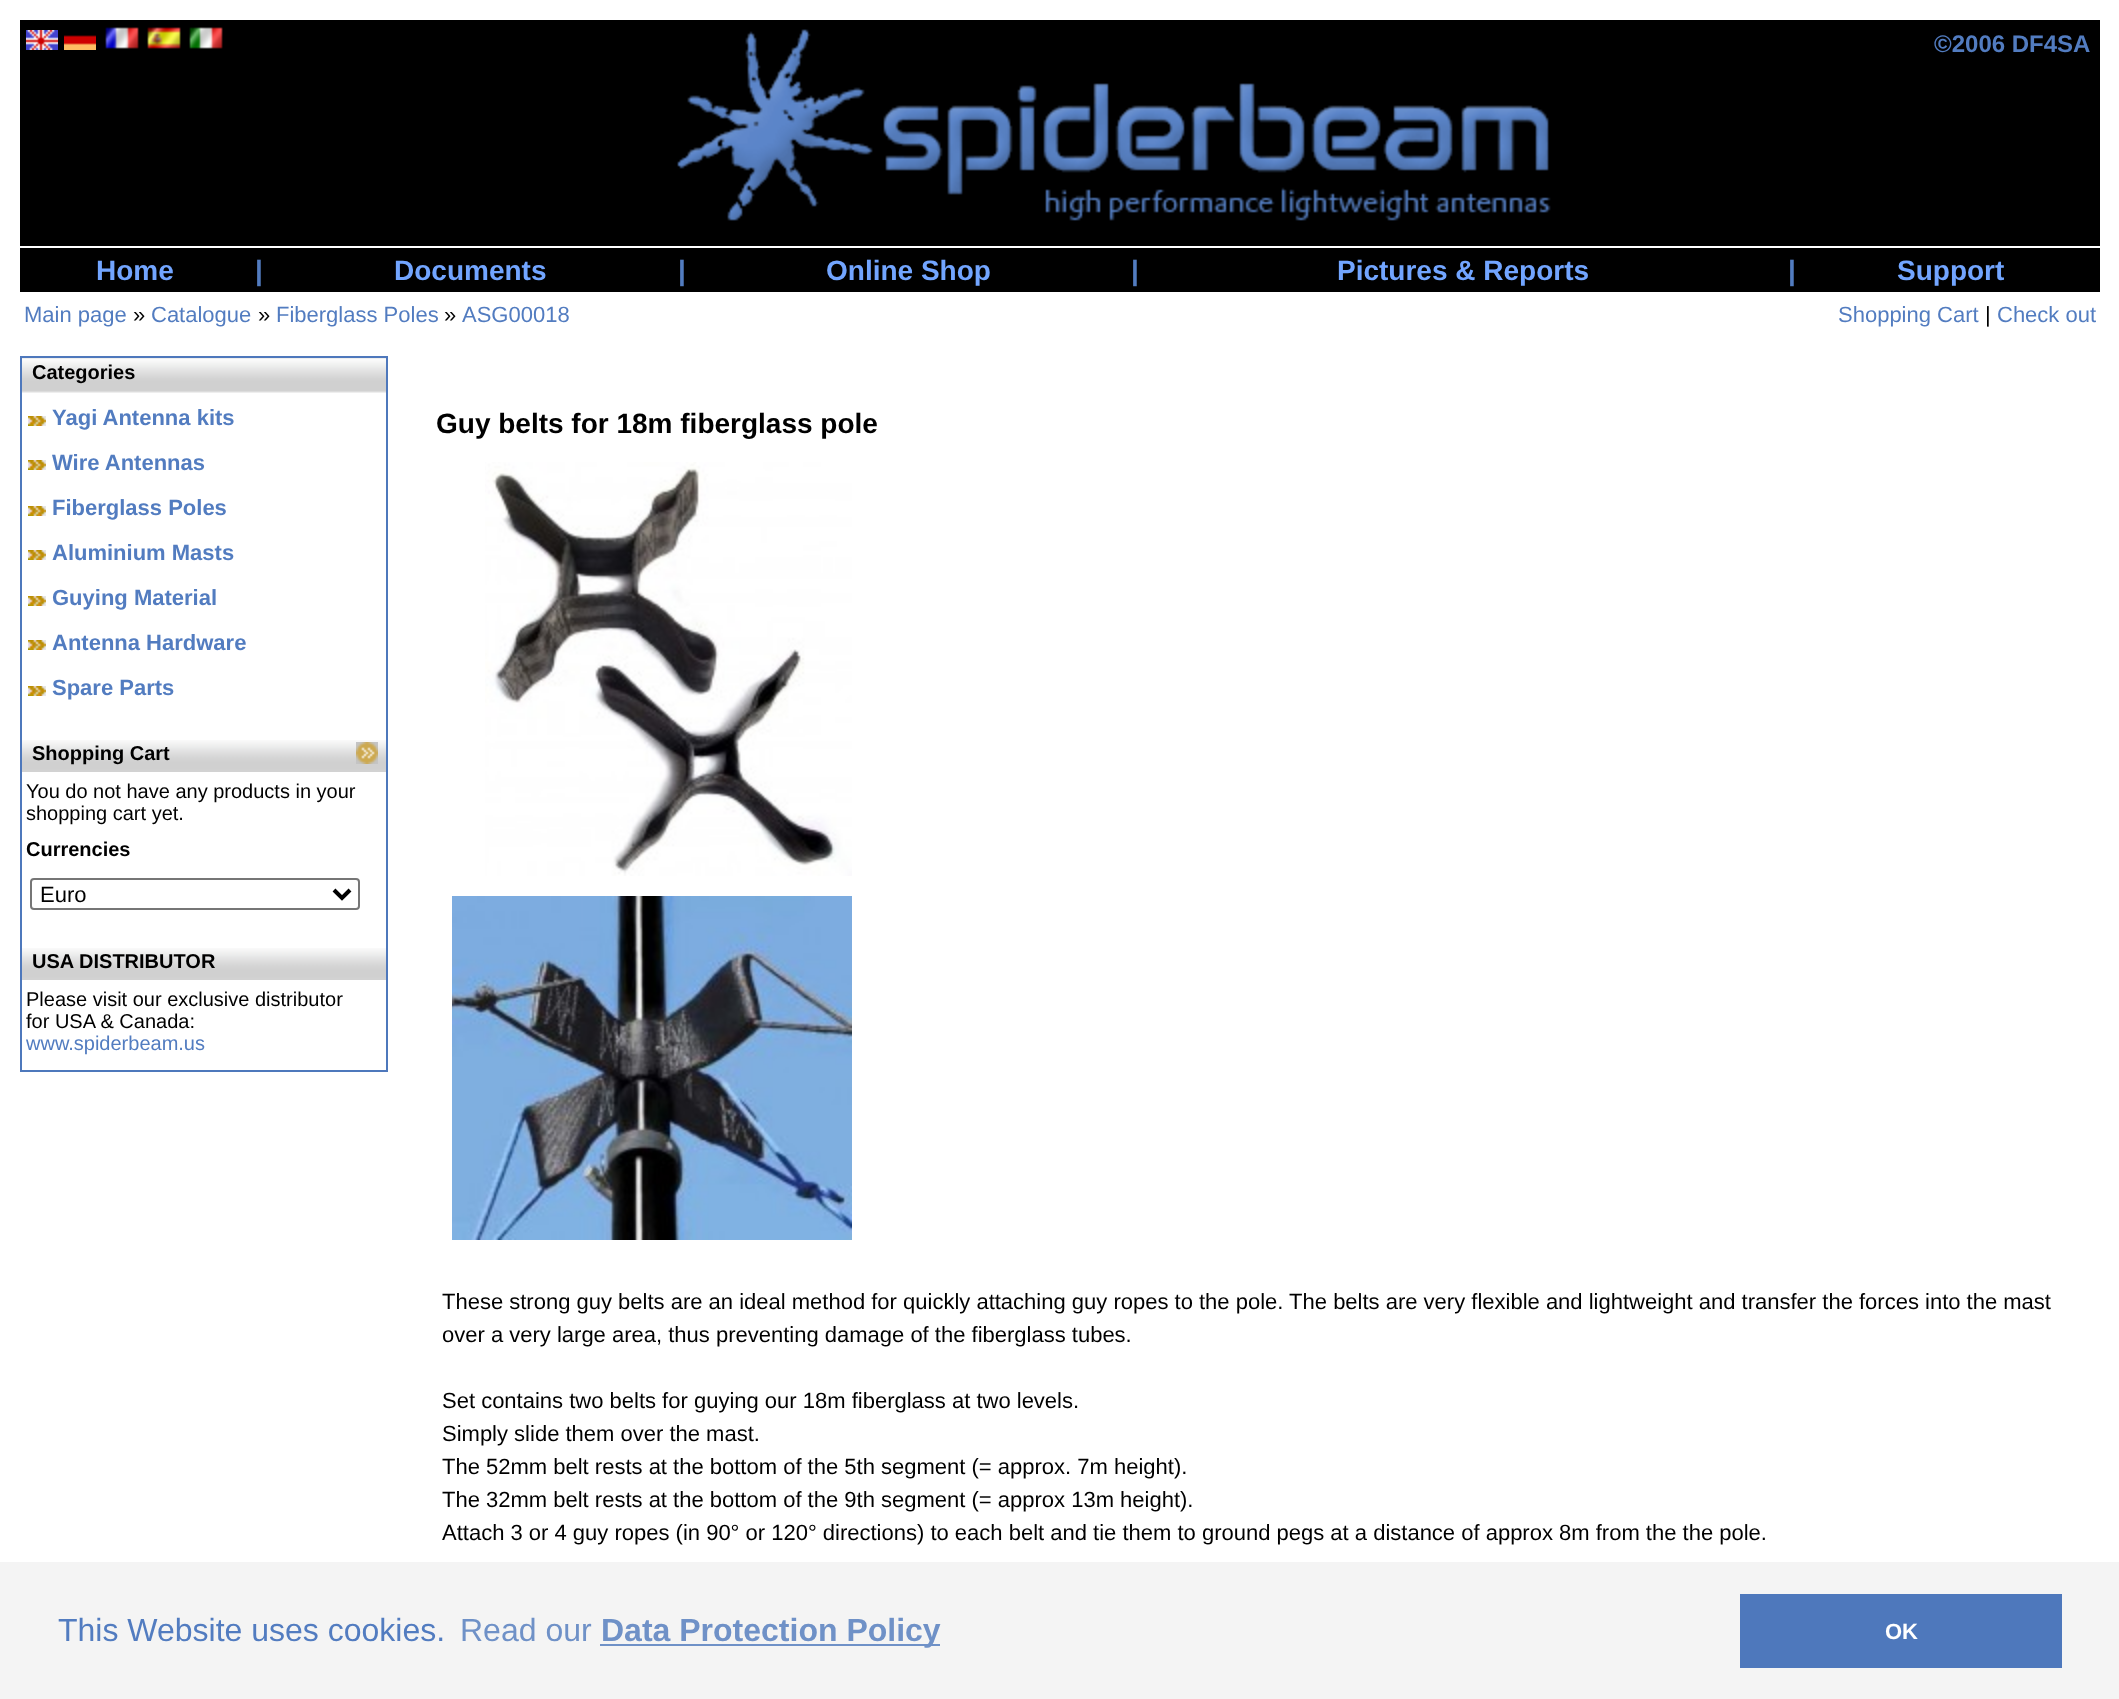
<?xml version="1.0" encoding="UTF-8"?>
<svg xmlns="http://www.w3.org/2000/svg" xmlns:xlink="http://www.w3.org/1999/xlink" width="2119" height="1699">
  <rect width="100%" height="100%" fill="#ffffff" />
  <rect x="20" y="20" width="2080" height="226" fill="#000000" />
  <image x="26" y="30" width="32" height="20" xlink:href="image1.png" />
  <image x="64" y="35" width="32" height="15" xlink:href="image2.png" />
  <image x="105" y="27" width="34" height="22" xlink:href="image3.png" />
  <image x="147" y="27" width="34" height="22" xlink:href="image4.png" />
  <image x="189" y="27" width="34" height="22" xlink:href="image5.png" />
  <image x="677" y="29" width="874" height="192" xlink:href="image6.png" />
  <rect x="20" y="248" width="2080" height="44" fill="#000000" />
  <rect x="21" y="357" width="366" height="714" fill="none" stroke="#4e78bc" stroke-width="2" />
  <image x="22" y="358" width="364" height="35" xlink:href="image7.png" />
  <image x="28" y="416" width="18" height="10" xlink:href="image8.png" />
  <image x="28" y="460" width="18" height="10" xlink:href="image8.png" />
  <image x="28" y="506" width="18" height="10" xlink:href="image8.png" />
  <image x="28" y="550" width="18" height="10" xlink:href="image8.png" />
  <image x="28" y="596" width="18" height="10" xlink:href="image8.png" />
  <image x="28" y="640" width="18" height="10" xlink:href="image8.png" />
  <image x="28" y="686" width="18" height="10" xlink:href="image8.png" />
  <image x="22" y="740" width="364" height="32" xlink:href="image9.png" />
  <image x="356" y="742" width="22" height="22" xlink:href="image10.png" />
  <rect x="31" y="879" width="328" height="30" rx="3" fill="none" stroke="#767676" stroke-width="2" />
  <path d="M 334 890 l 8 8 l 8 -8" fill="none" stroke="#000000" stroke-width="4" />
  <image x="22" y="948" width="364" height="32" xlink:href="image9.png" />
  <image x="485" y="462" width="367" height="414" xlink:href="image11.png" />
  <image x="452" y="896" width="400" height="344" xlink:href="image12.png" />
  <rect y="1562" width="2119" height="137" fill="#f4f4f4" />
  <rect x="600" y="1644" width="340" height="2" fill="#6f91c7" />
  <rect x="1740" y="1594" width="322" height="74" fill="#4e78bc" />
  <text x="1934" y="52" style="font-family: Liberation Sans; font-size: 24px; font-weight: bold; fill: #527cc0">©2006 DF4SA</text>
  <text x="96" y="280" style="font-family: Liberation Sans; font-size: 28px; font-weight: bold; fill: #72a5ff">Home</text>
  <text x="255" y="280" style="font-family: Liberation Sans; font-size: 28px; font-weight: bold; fill: #527cc0">|</text>
  <text x="394" y="280" style="font-family: Liberation Sans; font-size: 28px; font-weight: bold; fill: #72a5ff">Documents</text>
  <text x="678" y="280" style="font-family: Liberation Sans; font-size: 28px; font-weight: bold; fill: #527cc0">|</text>
  <text x="826" y="280" style="font-family: Liberation Sans; font-size: 28px; font-weight: bold; fill: #72a5ff">Online Shop</text>
  <text x="1131" y="280" style="font-family: Liberation Sans; font-size: 28px; font-weight: bold; fill: #527cc0">|</text>
  <text x="1337" y="280" style="font-family: Liberation Sans; font-size: 28px; font-weight: bold; fill: #72a5ff">Pictures &amp; Reports</text>
  <text x="1788" y="280" style="font-family: Liberation Sans; font-size: 28px; font-weight: bold; fill: #527cc0">|</text>
  <text x="1897" y="280" style="font-family: Liberation Sans; font-size: 28px; font-weight: bold; fill: #72a5ff">Support</text>
  <text x="24" y="322" style="font-family: Liberation Sans; font-size: 22px; fill: #527cc0">Main page</text>
  <text x="133" y="322" style="font-family: Liberation Sans; font-size: 22px; fill: #000000">»</text>
  <text x="151" y="322" style="font-family: Liberation Sans; font-size: 22px; fill: #527cc0">Catalogue</text>
  <text x="258" y="322" style="font-family: Liberation Sans; font-size: 22px; fill: #000000">»</text>
  <text x="276" y="322" style="font-family: Liberation Sans; font-size: 22px; fill: #527cc0">Fiberglass Poles</text>
  <text x="444" y="322" style="font-family: Liberation Sans; font-size: 22px; fill: #000000">»</text>
  <text x="462" y="322" style="font-family: Liberation Sans; font-size: 22px; fill: #527cc0">ASG00018</text>
  <text x="1838" y="322" style="font-family: Liberation Sans; font-size: 22px; fill: #527cc0">Shopping Cart</text>
  <text x="1985" y="322" style="font-family: Liberation Sans; font-size: 22px; fill: #000000">|</text>
  <text x="1997" y="322" style="font-family: Liberation Sans; font-size: 22px; fill: #527cc0">Check out</text>
  <text x="32" y="379" style="font-family: Liberation Sans; font-size: 20px; font-weight: bold; fill: #000000">Categories</text>
  <text x="52" y="425" style="font-family: Liberation Sans; font-size: 22px; font-weight: bold; fill: #527cc0">Yagi Antenna kits</text>
  <text x="52" y="470" style="font-family: Liberation Sans; font-size: 22px; font-weight: bold; fill: #527cc0">Wire Antennas</text>
  <text x="52" y="515" style="font-family: Liberation Sans; font-size: 22px; font-weight: bold; fill: #527cc0">Fiberglass Poles</text>
  <text x="52" y="560" style="font-family: Liberation Sans; font-size: 22px; font-weight: bold; fill: #527cc0">Aluminium Masts</text>
  <text x="52" y="605" style="font-family: Liberation Sans; font-size: 22px; font-weight: bold; fill: #527cc0">Guying Material</text>
  <text x="52" y="650" style="font-family: Liberation Sans; font-size: 22px; font-weight: bold; fill: #527cc0">Antenna Hardware</text>
  <text x="52" y="695" style="font-family: Liberation Sans; font-size: 22px; font-weight: bold; fill: #527cc0">Spare Parts</text>
  <text x="32" y="760" style="font-family: Liberation Sans; font-size: 20px; font-weight: bold; fill: #000000">Shopping Cart</text>
  <text x="26" y="798" style="font-family: Liberation Sans; font-size: 20px; fill: #000000">You do not have any products in your</text>
  <text x="26" y="820" style="font-family: Liberation Sans; font-size: 20px; fill: #000000">shopping cart yet.</text>
  <text x="26" y="856" style="font-family: Liberation Sans; font-size: 20px; font-weight: bold; fill: #000000">Currencies</text>
  <text x="40" y="902" style="font-family: Liberation Sans; font-size: 22px; fill: #000000">Euro</text>
  <text x="32" y="968" style="font-family: Liberation Sans; font-size: 20px; font-weight: bold; fill: #000000">USA DISTRIBUTOR</text>
  <text x="26" y="1006" style="font-family: Liberation Sans; font-size: 20px; fill: #000000">Please visit our exclusive distributor</text>
  <text x="26" y="1028" style="font-family: Liberation Sans; font-size: 20px; fill: #000000">for USA &amp; Canada:</text>
  <text x="26" y="1050" style="font-family: Liberation Sans; font-size: 20px; fill: #527cc0">www.spiderbeam.us</text>
  <text x="436" y="433" style="font-family: Liberation Sans; font-size: 28px; font-weight: bold; fill: #000000">Guy belts for 18m fiberglass pole</text>
  <text x="442" y="1309" style="font-family: Liberation Sans; font-size: 22px; fill: #000000">These strong guy belts are an ideal method for quickly attaching guy ropes to the pole. The belts are very flexible and lightweight and transfer the forces into the mast</text>
  <text x="442" y="1342" style="font-family: Liberation Sans; font-size: 22px; fill: #000000">over a very large area, thus preventing damage of the fiberglass tubes.</text>
  <text x="442" y="1408" style="font-family: Liberation Sans; font-size: 22px; fill: #000000">Set contains two belts for guying our 18m fiberglass at two levels.</text>
  <text x="442" y="1441" style="font-family: Liberation Sans; font-size: 22px; fill: #000000">Simply slide them over the mast.</text>
  <text x="442" y="1474" style="font-family: Liberation Sans; font-size: 22px; fill: #000000">The 52mm belt rests at the bottom of the 5th segment (= approx. 7m height).</text>
  <text x="442" y="1507" style="font-family: Liberation Sans; font-size: 22px; fill: #000000">The 32mm belt rests at the bottom of the 9th segment (= approx 13m height).</text>
  <text x="442" y="1540" style="font-family: Liberation Sans; font-size: 22px; fill: #000000">Attach 3 or 4 guy ropes (in 90° or 120° directions) to each belt and tie them to ground pegs at a distance of approx 8m from the the pole.</text>
  <text x="58" y="1641" style="font-family: Liberation Sans; font-size: 32px; fill: #527cc0">This Website uses cookies.</text>
  <text x="460" y="1641" style="font-family: Liberation Sans; font-size: 32px; fill: #6f91c7">Read our</text>
  <text x="601" y="1641" style="font-family: Liberation Sans; font-size: 32px; font-weight: bold; fill: #6f91c7">Data Protection Policy</text>
  <text x="1885" y="1639" style="font-family: Liberation Sans; font-size: 22px; font-weight: bold; fill: #ffffff">OK</text>
</svg>
